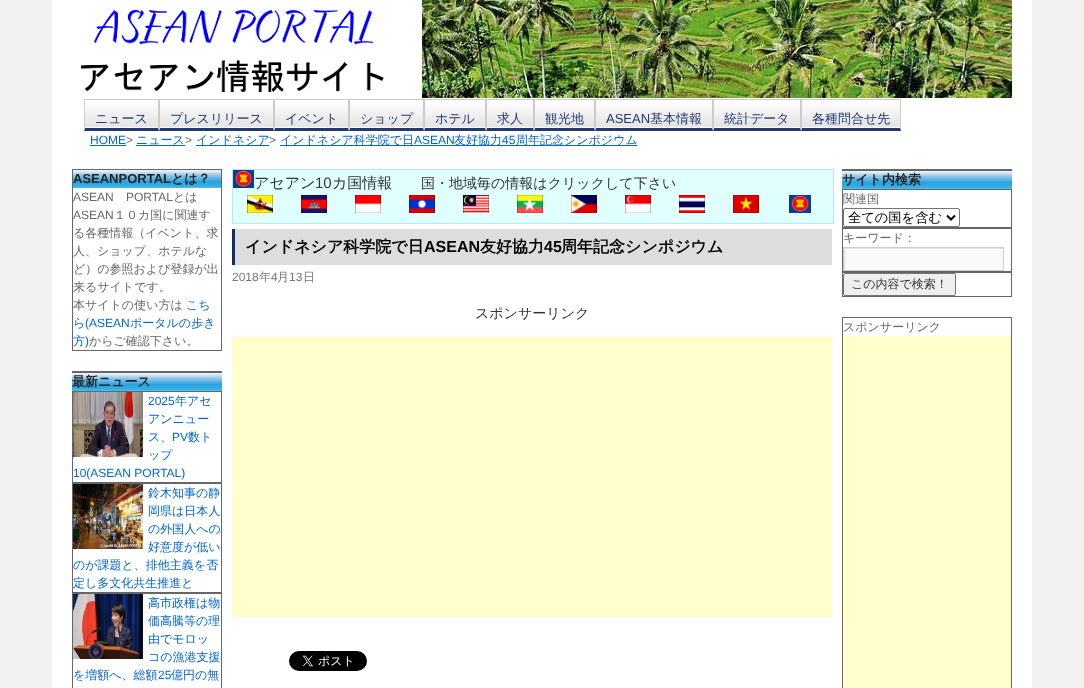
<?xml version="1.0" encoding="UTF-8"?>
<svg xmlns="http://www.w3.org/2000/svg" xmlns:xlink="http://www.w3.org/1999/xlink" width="1084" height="688">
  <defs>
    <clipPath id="clip1"><rect x="844" y="248" width="159" height="22" /></clipPath>
  </defs>
  <rect width="100%" height="100%" fill="#f1f1f1" />
  <rect x="52" width="980" height="688" fill="#ffffff" />
  <image x="81" y="9" width="303" height="83" xlink:href="image1.png" />
  <image x="422" y="0" width="590" height="98" xlink:href="image2.png" />
  <image x="85" y="104" width="73" height="23" xlink:href="image3.png" />
  <rect x="84" y="99" width="817" height="1" fill="#cccccc" />
  <path d="M 159 99 v 32 l -1 -3 v -28 z" fill="#cccccc" />
  <path d="M 159 131 h -75 l 1 -3 h 73 z" fill="#223a70" />
  <path d="M 84 131 v -32 l 1 1 v 28 z" fill="#cccccc" />
  <image x="160" y="104" width="113" height="23" xlink:href="image4.png" />
  <path d="M 274 99 v 32 l -1 -3 v -28 z" fill="#cccccc" />
  <path d="M 274 131 h -115 l 1 -3 h 113 z" fill="#223a70" />
  <path d="M 159 131 v -32 l 1 1 v 28 z" fill="#cccccc" />
  <image x="275" y="104" width="73" height="23" xlink:href="image3.png" />
  <path d="M 349 99 v 32 l -1 -3 v -28 z" fill="#cccccc" />
  <path d="M 349 131 h -75 l 1 -3 h 73 z" fill="#223a70" />
  <path d="M 274 131 v -32 l 1 1 v 28 z" fill="#cccccc" />
  <image x="350" y="104" width="73" height="23" xlink:href="image3.png" />
  <path d="M 424 99 v 32 l -1 -3 v -28 z" fill="#cccccc" />
  <path d="M 424 131 h -75 l 1 -3 h 73 z" fill="#223a70" />
  <path d="M 349 131 v -32 l 1 1 v 28 z" fill="#cccccc" />
  <image x="425" y="104" width="60" height="23" xlink:href="image5.png" />
  <path d="M 486 99 v 32 l -1 -3 v -28 z" fill="#cccccc" />
  <path d="M 486 131 h -62 l 1 -3 h 60 z" fill="#223a70" />
  <path d="M 424 131 v -32 l 1 1 v 28 z" fill="#cccccc" />
  <image x="487" y="104" width="46" height="23" xlink:href="image6.png" />
  <path d="M 534 99 v 32 l -1 -3 v -28 z" fill="#cccccc" />
  <path d="M 534 131 h -48 l 1 -3 h 46 z" fill="#223a70" />
  <path d="M 486 131 v -32 l 1 1 v 28 z" fill="#cccccc" />
  <image x="535" y="104" width="59" height="23" xlink:href="image7.png" />
  <path d="M 595 99 v 32 l -1 -3 v -28 z" fill="#cccccc" />
  <path d="M 595 131 h -61 l 1 -3 h 59 z" fill="#223a70" />
  <path d="M 534 131 v -32 l 1 1 v 28 z" fill="#cccccc" />
  <image x="596" y="104" width="116" height="23" xlink:href="image8.png" />
  <path d="M 713 99 v 32 l -1 -3 v -28 z" fill="#cccccc" />
  <path d="M 713 131 h -118 l 1 -3 h 116 z" fill="#223a70" />
  <path d="M 595 131 v -32 l 1 1 v 28 z" fill="#cccccc" />
  <image x="714" y="104" width="86" height="23" xlink:href="image9.png" />
  <path d="M 801 99 v 32 l -1 -3 v -28 z" fill="#cccccc" />
  <path d="M 801 131 h -88 l 1 -3 h 86 z" fill="#223a70" />
  <path d="M 713 131 v -32 l 1 1 v 28 z" fill="#cccccc" />
  <image x="802" y="104" width="98" height="23" xlink:href="image10.png" />
  <path d="M 901 99 v 32 l -1 -3 v -28 z" fill="#cccccc" />
  <path d="M 901 131 h -100 l 1 -3 h 98 z" fill="#223a70" />
  <path d="M 801 131 v -32 l 1 1 v 28 z" fill="#cccccc" />
  <rect x="90" y="145" width="36" height="1" fill="#0066cc" />
  <rect x="136" y="145" width="49" height="1" fill="#0066cc" />
  <rect x="196" y="145" width="73" height="1" fill="#0066cc" />
  <rect x="280" y="145" width="357" height="1" fill="#0066cc" />
  <rect x="72.5" y="169.5" width="149" height="181" fill="none" stroke="#666666" />
  <image x="73" y="170" width="148" height="18" xlink:href="image11.png" />
  <rect x="72" y="371" width="150" height="2" fill="#666666" />
  <image x="72" y="373" width="150" height="18" xlink:href="image12.png" />
  <rect x="72.5" y="391.5" width="149" height="91" fill="none" stroke="#666666" />
  <image x="73" y="392" width="70" height="65" xlink:href="image13.png" />
  <rect x="72.5" y="483.5" width="149" height="109" fill="none" stroke="#666666" />
  <image x="73" y="484" width="70" height="65" xlink:href="image14.png" />
  <rect x="72.5" y="593.5" width="149" height="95" fill="none" stroke="#666666" />
  <image x="73" y="594" width="70" height="65" xlink:href="image15.png" />
  <rect x="232.5" y="169.5" width="601" height="54" fill="#e0ffff" stroke="#afeeee" />
  <image x="233" y="170" width="21" height="18" xlink:href="image16.png" />
  <image x="247" y="195" width="26" height="18" xlink:href="image17.png" />
  <image x="301" y="195" width="26" height="18" xlink:href="image18.png" />
  <image x="355" y="195" width="26" height="18" xlink:href="image19.png" />
  <image x="409" y="195" width="26" height="18" xlink:href="image20.png" />
  <image x="463" y="195" width="26" height="18" xlink:href="image21.png" />
  <image x="517" y="195" width="26" height="18" xlink:href="image22.png" />
  <image x="571" y="195" width="26" height="18" xlink:href="image23.png" />
  <image x="625" y="195" width="26" height="18" xlink:href="image24.png" />
  <image x="679" y="195" width="26" height="18" xlink:href="image25.png" />
  <image x="733" y="195" width="26" height="18" xlink:href="image26.png" />
  <image x="789" y="195" width="22" height="18" xlink:href="image27.png" />
  <rect x="235" y="229" width="597" height="36" fill="#dddddd" />
  <rect x="232" y="229" width="3" height="36" fill="#132e63" />
  <rect x="232" y="337" width="600" height="280" fill="#ffffcc" />
  <image x="289" y="651" width="78" height="20" xlink:href="image28.png" />
  <rect x="842" y="169" width="170" height="2" fill="#666666" />
  <image x="842" y="171" width="170" height="18" xlink:href="image29.png" />
  <rect x="842.5" y="189.5" width="169" height="38" fill="none" stroke="#666666" />
  <rect x="843.5" y="208.5" width="116" height="18" rx="1.5" fill="none" stroke="#767676" />
  <path d="M 947 215.5 l 4 4 l 4 -4" fill="none" stroke="#000000" stroke-width="2" />
  <rect x="842.5" y="228.5" width="169" height="43" fill="none" stroke="#666666" />
  <rect x="845" y="249" width="158" height="21" fill="#f9f9f9" />
  <g clip-path="url(#clip1)">
    <path d="M 745 149 h 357 v 220 h -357 z m 100 100 h 159 v 22 h -159 z" fill="#e0e0e0" fill-rule="evenodd" />
  </g>
  <rect x="843.5" y="247.5" width="160" height="23" fill="none" stroke="#cccccc" />
  <rect x="842.5" y="272.5" width="169" height="24" fill="none" stroke="#666666" />
  <rect x="843.5" y="273.5" width="112" height="22" rx="1.5" fill="#efefef" stroke="#767676" />
  <rect x="842.5" y="317.5" width="169" height="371" fill="none" stroke="#666666" />
  <rect x="843" y="336" width="168" height="352" fill="#ffffcc" />
  <text x="95" y="123" style="font-family: WenQuanYi Zen Hei; font-size: 13px; font-weight: 500; fill: #223a70">ニュース</text>
  <text x="170" y="123" style="font-family: WenQuanYi Zen Hei; font-size: 13px; font-weight: 500; fill: #223a70">プレスリリース</text>
  <text x="285" y="123" style="font-family: WenQuanYi Zen Hei; font-size: 13px; font-weight: 500; fill: #223a70">イベント</text>
  <text x="360" y="123" style="font-family: WenQuanYi Zen Hei; font-size: 13px; font-weight: 500; fill: #223a70">ショップ</text>
  <text x="435" y="123" style="font-family: WenQuanYi Zen Hei; font-size: 13px; font-weight: 500; fill: #223a70">ホテル</text>
  <text x="497" y="123" style="font-family: WenQuanYi Zen Hei; font-size: 13px; font-weight: 500; fill: #223a70">求人</text>
  <text x="545" y="123" style="font-family: WenQuanYi Zen Hei; font-size: 13px; font-weight: 500; fill: #223a70">観光地</text>
  <text x="606" y="123" style="font-family: Liberation Sans; font-size: 13px; fill: #223a70">ASEAN</text>
  <text x="650" y="123" style="font-family: WenQuanYi Zen Hei; font-size: 13px; font-weight: 500; fill: #223a70">基本情報</text>
  <text x="724" y="123" style="font-family: WenQuanYi Zen Hei; font-size: 13px; font-weight: 500; fill: #223a70">統計データ</text>
  <text x="812" y="123" style="font-family: WenQuanYi Zen Hei; font-size: 13px; font-weight: 500; fill: #223a70">各種問合せ先</text>
  <text x="90" y="144" style="font-family: Liberation Sans; font-size: 12px; fill: #0066cc">HOME</text>
  <text x="126" y="144" style="font-family: Liberation Sans; font-size: 12px; fill: #666666">&gt;</text>
  <text x="136" y="144" style="font-family: WenQuanYi Zen Hei; font-size: 12px; font-weight: 500; fill: #0066cc">ニュース</text>
  <text x="185" y="144" style="font-family: Liberation Sans; font-size: 12px; fill: #666666">&gt;</text>
  <text x="196" y="144" style="font-family: WenQuanYi Zen Hei; font-size: 12px; font-weight: 500; fill: #0066cc">インドネシア</text>
  <text x="269" y="144" style="font-family: Liberation Sans; font-size: 12px; fill: #666666">&gt;</text>
  <text x="280" y="144" style="font-family: WenQuanYi Zen Hei; font-size: 12px; font-weight: 500; fill: #0066cc">インドネシア科学院で日</text>
  <text x="414" y="144" style="font-family: Liberation Sans; font-size: 12px; fill: #0066cc">ASEAN</text>
  <text x="454" y="144" style="font-family: WenQuanYi Zen Hei; font-size: 12px; font-weight: 500; fill: #0066cc">友好協力</text>
  <text x="502" y="144" style="font-family: Liberation Sans; font-size: 12px; fill: #0066cc">45</text>
  <text x="516" y="144" style="font-family: WenQuanYi Zen Hei; font-size: 12px; font-weight: 500; fill: #0066cc">周年記念シンポジウム</text>
  <text x="73" y="183" style="font-family: Liberation Sans; font-size: 13px; font-weight: bold; fill: #222222">ASEANPORTAL</text>
  <text x="171" y="183" style="font-family: WenQuanYi Zen Hei; font-size: 13px; font-weight: bold; fill: #222222">とは？</text>
  <text x="73" y="201" style="font-family: Liberation Sans; font-size: 12px; fill: #666666">ASEAN</text>
  <text x="126" y="201" style="font-family: Liberation Sans; font-size: 12px; fill: #666666">PORTAL</text>
  <text x="173" y="201" style="font-family: WenQuanYi Zen Hei; font-size: 12px; font-weight: 500; fill: #666666">とは</text>
  <text x="73" y="219" style="font-family: Liberation Sans; font-size: 12px; fill: #666666">ASEAN</text>
  <text x="114" y="219" style="font-family: WenQuanYi Zen Hei; font-size: 12px; font-weight: 500; fill: #666666">１０カ国に関連す</text>
  <text x="73" y="237" style="font-family: WenQuanYi Zen Hei; font-size: 12px; font-weight: 500; fill: #666666">る各種情報（イベント、求</text>
  <text x="73" y="255" style="font-family: WenQuanYi Zen Hei; font-size: 12px; font-weight: 500; fill: #666666">人、ショップ、ホテルな</text>
  <text x="73" y="273" style="font-family: WenQuanYi Zen Hei; font-size: 12px; font-weight: 500; fill: #666666">ど）の参照および登録が出</text>
  <text x="73" y="291" style="font-family: WenQuanYi Zen Hei; font-size: 12px; font-weight: 500; fill: #666666">来るサイトです。</text>
  <text x="73" y="309" style="font-family: WenQuanYi Zen Hei; font-size: 12px; font-weight: 500; fill: #666666">本サイトの使い方は</text>
  <text x="186" y="309" style="font-family: WenQuanYi Zen Hei; font-size: 12px; font-weight: 500; fill: #0066cc">こち</text>
  <text x="73" y="327" style="font-family: WenQuanYi Zen Hei; font-size: 12px; font-weight: 500; fill: #0066cc">ら</text>
  <text x="85" y="327" style="font-family: Liberation Sans; font-size: 12px; fill: #0066cc">(ASEAN</text>
  <text x="130" y="327" style="font-family: WenQuanYi Zen Hei; font-size: 12px; font-weight: 500; fill: #0066cc">ポータルの歩き</text>
  <text x="73" y="345" style="font-family: WenQuanYi Zen Hei; font-size: 12px; font-weight: 500; fill: #0066cc">方</text>
  <text x="85" y="345" style="font-family: Liberation Sans; font-size: 12px; fill: #0066cc">)</text>
  <text x="89" y="345" style="font-family: WenQuanYi Zen Hei; font-size: 12px; font-weight: 500; fill: #666666">からご確認下さい。</text>
  <text x="72" y="386" style="font-family: WenQuanYi Zen Hei; font-size: 13px; font-weight: bold; fill: #222222">最新ニュース</text>
  <text x="148" y="405" style="font-family: Liberation Sans; font-size: 12px; fill: #0066cc">2025</text>
  <text x="175" y="405" style="font-family: WenQuanYi Zen Hei; font-size: 12px; font-weight: 500; fill: #0066cc">年アセ</text>
  <text x="148" y="423" style="font-family: WenQuanYi Zen Hei; font-size: 12px; font-weight: 500; fill: #0066cc">アンニュー</text>
  <text x="148" y="441" style="font-family: WenQuanYi Zen Hei; font-size: 12px; font-weight: 500; fill: #0066cc">ス、</text>
  <text x="172" y="441" style="font-family: Liberation Sans; font-size: 12px; fill: #0066cc">PV</text>
  <text x="188" y="441" style="font-family: WenQuanYi Zen Hei; font-size: 12px; font-weight: 500; fill: #0066cc">数ト</text>
  <text x="148" y="459" style="font-family: WenQuanYi Zen Hei; font-size: 12px; font-weight: 500; fill: #0066cc">ップ</text>
  <text x="73" y="477" style="font-family: Liberation Sans; font-size: 12px; fill: #0066cc">10(ASEAN PORTAL)</text>
  <text x="148" y="497" style="font-family: WenQuanYi Zen Hei; font-size: 12px; font-weight: 500; fill: #0066cc">鈴木知事の静</text>
  <text x="148" y="515" style="font-family: WenQuanYi Zen Hei; font-size: 12px; font-weight: 500; fill: #0066cc">岡県は日本人</text>
  <text x="148" y="533" style="font-family: WenQuanYi Zen Hei; font-size: 12px; font-weight: 500; fill: #0066cc">の外国人への</text>
  <text x="148" y="551" style="font-family: WenQuanYi Zen Hei; font-size: 12px; font-weight: 500; fill: #0066cc">好意度が低い</text>
  <text x="73" y="569" style="font-family: WenQuanYi Zen Hei; font-size: 12px; font-weight: 500; fill: #0066cc">のが課題と、排他主義を否</text>
  <text x="73" y="587" style="font-family: WenQuanYi Zen Hei; font-size: 12px; font-weight: 500; fill: #0066cc">定し多文化共生推進と</text>
  <text x="148" y="607" style="font-family: WenQuanYi Zen Hei; font-size: 12px; font-weight: 500; fill: #0066cc">高市政権は物</text>
  <text x="148" y="625" style="font-family: WenQuanYi Zen Hei; font-size: 12px; font-weight: 500; fill: #0066cc">価高騰等の理</text>
  <text x="148" y="643" style="font-family: WenQuanYi Zen Hei; font-size: 12px; font-weight: 500; fill: #0066cc">由でモロッ</text>
  <text x="148" y="661" style="font-family: WenQuanYi Zen Hei; font-size: 12px; font-weight: 500; fill: #0066cc">コの漁港支援</text>
  <text x="73" y="679" style="font-family: WenQuanYi Zen Hei; font-size: 12px; font-weight: 500; fill: #0066cc">を増額へ、総額</text>
  <text x="158" y="679" style="font-family: Liberation Sans; font-size: 12px; fill: #0066cc">25</text>
  <text x="171" y="679" style="font-family: WenQuanYi Zen Hei; font-size: 12px; font-weight: 500; fill: #0066cc">億円の無</text>
  <text x="254" y="188" style="font-family: WenQuanYi Zen Hei; font-size: 15px; font-weight: 500; fill: #333333">アセアン</text>
  <text x="315" y="188" style="font-family: Liberation Sans; font-size: 15px; fill: #333333">10</text>
  <text x="332" y="188" style="font-family: WenQuanYi Zen Hei; font-size: 15px; font-weight: 500; fill: #333333">カ国情報</text>
  <text x="421" y="188" style="font-family: WenQuanYi Zen Hei; font-size: 14px; font-weight: 500; fill: #333333">国・地域毎の情報はクリックして下さい</text>
  <text x="245" y="252" style="font-family: WenQuanYi Zen Hei; font-size: 16px; font-weight: bold; fill: #000000">インドネシア科学院で日</text>
  <text x="424" y="252" style="font-family: Liberation Sans; font-size: 16px; font-weight: bold; fill: #000000">ASEAN</text>
  <text x="480" y="252" style="font-family: WenQuanYi Zen Hei; font-size: 16px; font-weight: bold; fill: #000000">友好協力</text>
  <text x="544" y="252" style="font-family: Liberation Sans; font-size: 16px; font-weight: bold; fill: #000000">45</text>
  <text x="561" y="252" style="font-family: WenQuanYi Zen Hei; font-size: 16px; font-weight: bold; fill: #000000">周年記念シンポジウム</text>
  <text x="232" y="281" style="font-family: Liberation Sans; font-size: 12px; fill: #777777">2018</text>
  <text x="259" y="281" style="font-family: WenQuanYi Zen Hei; font-size: 12px; font-weight: 500; fill: #777777">年</text>
  <text x="271" y="281" style="font-family: Liberation Sans; font-size: 12px; fill: #777777">4</text>
  <text x="277" y="281" style="font-family: WenQuanYi Zen Hei; font-size: 12px; font-weight: 500; fill: #777777">月</text>
  <text x="289" y="281" style="font-family: Liberation Sans; font-size: 12px; fill: #777777">13</text>
  <text x="303" y="281" style="font-family: WenQuanYi Zen Hei; font-size: 12px; font-weight: 500; fill: #777777">日</text>
  <text x="475" y="318" style="font-family: WenQuanYi Zen Hei; font-size: 14px; font-weight: 500; fill: #333333">スポンサーリンク</text>
  <text x="842" y="184" style="font-family: WenQuanYi Zen Hei; font-size: 13px; font-weight: bold; fill: #222222">サイト内検索</text>
  <text x="843" y="203" style="font-family: WenQuanYi Zen Hei; font-size: 12px; font-weight: 500; fill: #666666">関連国</text>
  <text x="848" y="222" style="font-family: WenQuanYi Zen Hei; font-size: 13.25px; font-weight: 500; fill: #000000">全ての国を含む</text>
  <text x="843" y="242" style="font-family: WenQuanYi Zen Hei; font-size: 12px; font-weight: 500; fill: #666666">キーワード：</text>
  <text x="851" y="288" style="font-family: WenQuanYi Zen Hei; font-size: 12px; font-weight: 500; fill: #333333">この内容で検索！</text>
  <text x="843" y="331" style="font-family: WenQuanYi Zen Hei; font-size: 12px; font-weight: 500; fill: #666666">スポンサーリンク</text>
</svg>
